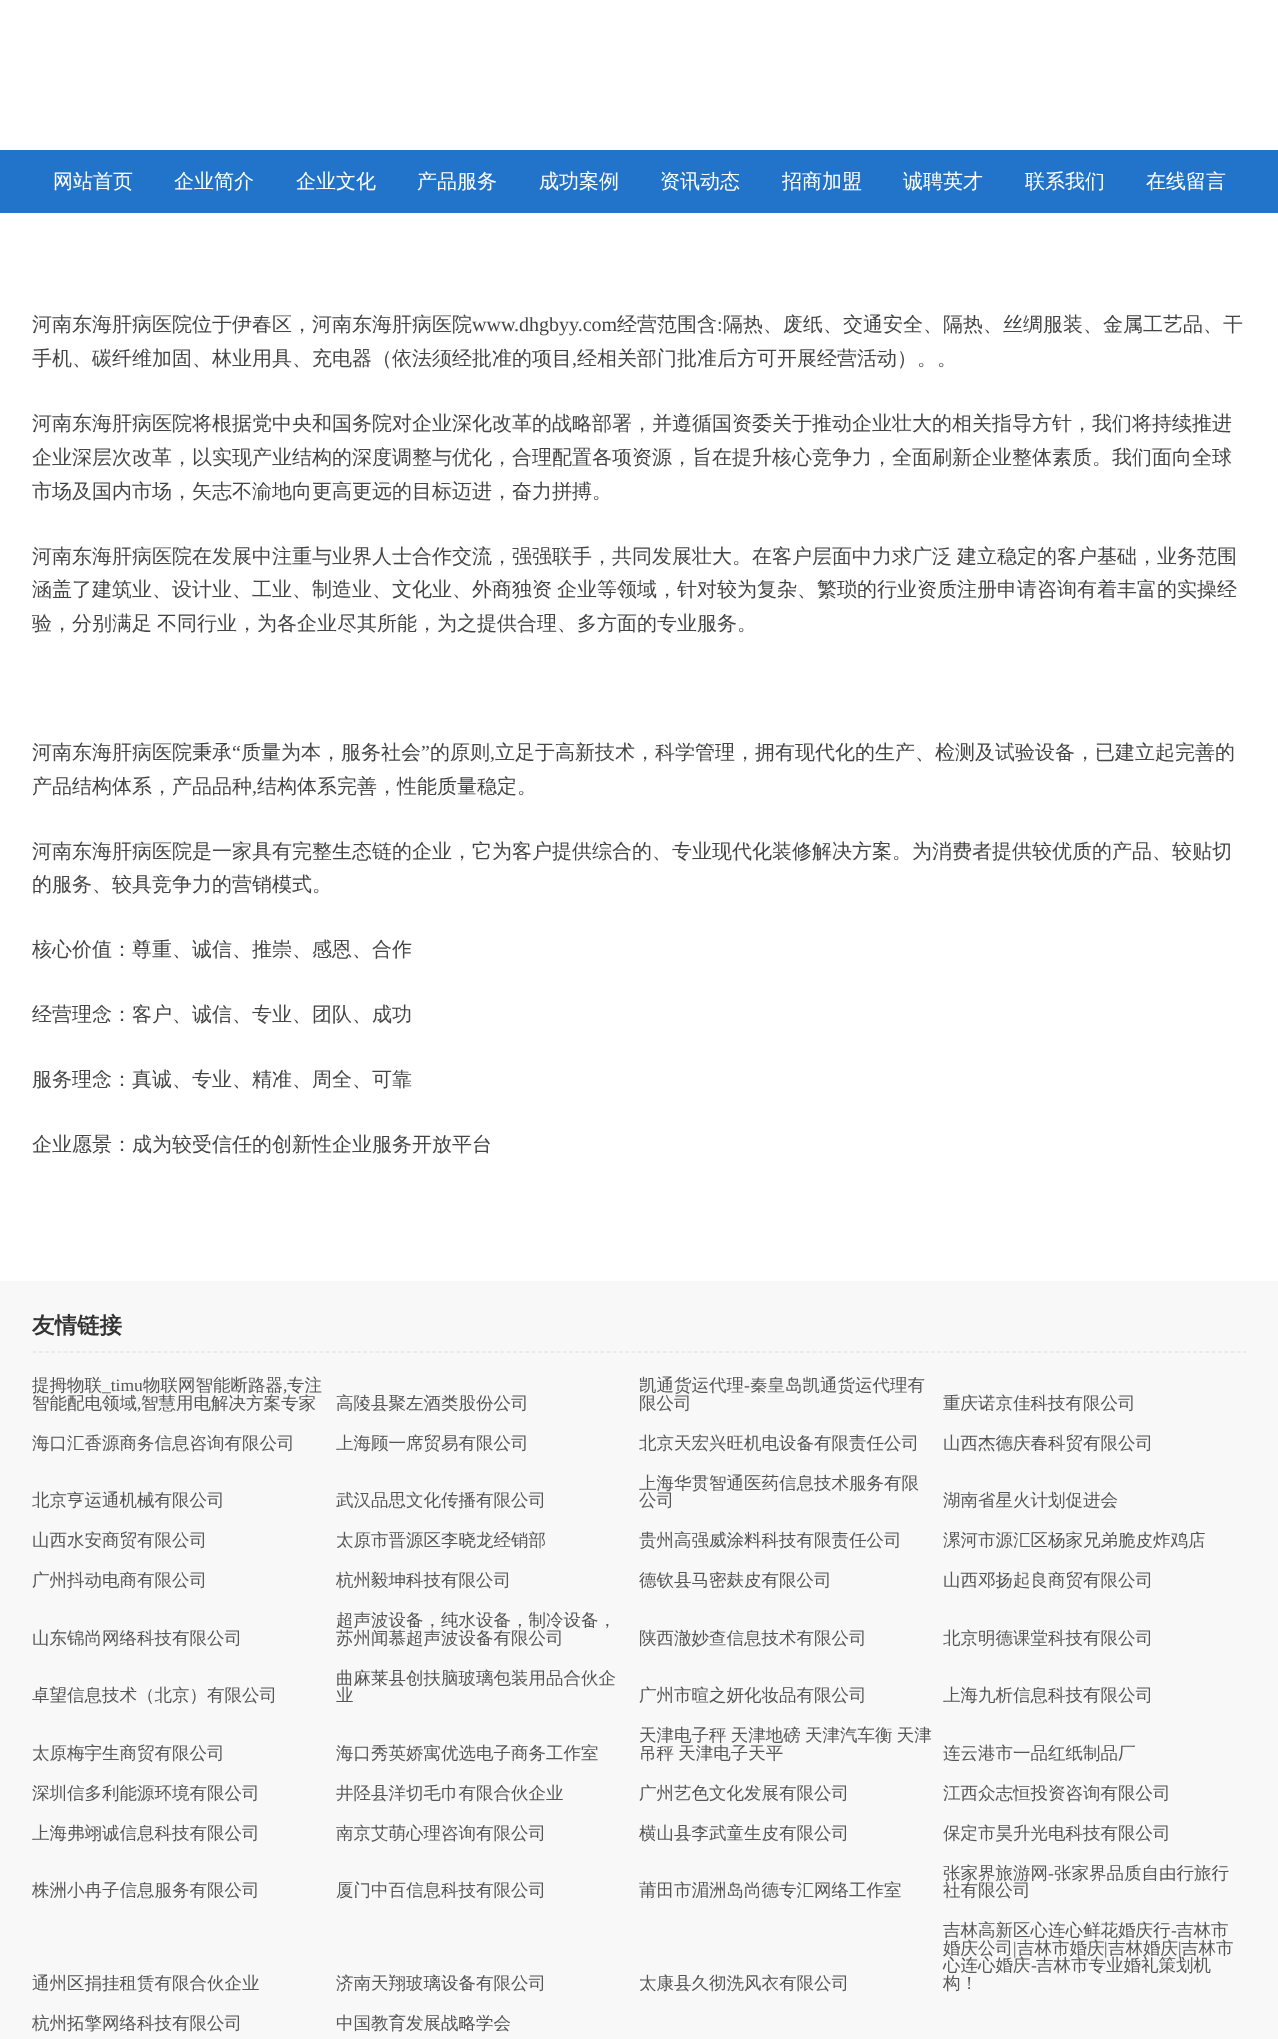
<?xml version="1.0" encoding="UTF-8"?>
<svg xmlns="http://www.w3.org/2000/svg" xmlns:xlink="http://www.w3.org/1999/xlink" width="1278" height="2039">
  <rect width="100%" height="100%" fill="#ffffff" />
  <rect y="150" width="1278" height="63" fill="#2274ca" />
  <rect y="1281" width="1278" height="758" fill="#f8f8f8" />
  <path d="M 32.5 1352 h 1213.5" fill="none" stroke="#dddddd" stroke-width="1.2" stroke-dasharray="3.75 2.49" />
  <text x="53" y="188" style="font-family: WenQuanYi Zen Hei; font-size: 20px; font-weight: 500; fill: #ffffff">网站首页</text>
  <text x="174" y="188" style="font-family: WenQuanYi Zen Hei; font-size: 20px; font-weight: 500; fill: #ffffff">企业简介</text>
  <text x="296" y="188" style="font-family: WenQuanYi Zen Hei; font-size: 20px; font-weight: 500; fill: #ffffff">企业文化</text>
  <text x="417" y="188" style="font-family: WenQuanYi Zen Hei; font-size: 20px; font-weight: 500; fill: #ffffff">产品服务</text>
  <text x="539" y="188" style="font-family: WenQuanYi Zen Hei; font-size: 20px; font-weight: 500; fill: #ffffff">成功案例</text>
  <text x="660" y="188" style="font-family: WenQuanYi Zen Hei; font-size: 20px; font-weight: 500; fill: #ffffff">资讯动态</text>
  <text x="782" y="188" style="font-family: WenQuanYi Zen Hei; font-size: 20px; font-weight: 500; fill: #ffffff">招商加盟</text>
  <text x="903" y="188" style="font-family: WenQuanYi Zen Hei; font-size: 20px; font-weight: 500; fill: #ffffff">诚聘英才</text>
  <text x="1025" y="188" style="font-family: WenQuanYi Zen Hei; font-size: 20px; font-weight: 500; fill: #ffffff">联系我们</text>
  <text x="1146" y="188" style="font-family: WenQuanYi Zen Hei; font-size: 20px; font-weight: 500; fill: #ffffff">在线留言</text>
  <text x="32" y="331" style="font-family: WenQuanYi Zen Hei; font-size: 20px; font-weight: 500; fill: #454545">河南东海肝病医院位于伊春区，河南东海肝病医院</text>
  <text x="472" y="331" style="font-family: Liberation Serif; font-size: 20px; fill: #454545">www.dhgbyy.com</text>
  <text x="617" y="331" style="font-family: WenQuanYi Zen Hei; font-size: 20px; font-weight: 500; fill: #454545">经营范围含</text>
  <text x="717" y="331" style="font-family: Liberation Serif; font-size: 20px; fill: #454545">:</text>
  <text x="723" y="331" style="font-family: WenQuanYi Zen Hei; font-size: 20px; font-weight: 500; fill: #454545">隔热、废纸、交通安全、隔热、丝绸服装、金属工艺品、干</text>
  <text x="32" y="365" style="font-family: WenQuanYi Zen Hei; font-size: 20px; font-weight: 500; fill: #454545">手机、碳纤维加固、林业用具、充电器（依法须经批准的项目</text>
  <text x="572" y="365" style="font-family: Liberation Serif; font-size: 20px; fill: #454545">,</text>
  <text x="577" y="365" style="font-family: WenQuanYi Zen Hei; font-size: 20px; font-weight: 500; fill: #454545">经相关部门批准后方可开展经营活动）。。</text>
  <text x="32" y="430" style="font-family: WenQuanYi Zen Hei; font-size: 20px; font-weight: 500; fill: #454545">河南东海肝病医院将根据党中央和国务院对企业深化改革的战略部署，并遵循国资委关于推动企业壮大的相关指导方针，我们将持续推进</text>
  <text x="32" y="464" style="font-family: WenQuanYi Zen Hei; font-size: 20px; font-weight: 500; fill: #454545">企业深层次改革，以实现产业结构的深度调整与优化，合理配置各项资源，旨在提升核心竞争力，全面刷新企业整体素质。我们面向全球</text>
  <text x="32" y="498" style="font-family: WenQuanYi Zen Hei; font-size: 20px; font-weight: 500; fill: #454545">市场及国内市场，矢志不渝地向更高更远的目标迈进，奋力拼搏。</text>
  <text x="32" y="563" word-spacing="-1" style="font-family: WenQuanYi Zen Hei; font-size: 20px; font-weight: 500; fill: #454545">河南东海肝病医院在发展中注重与业界人士合作交流，强强联手，共同发展壮大。在客户层面中力求广泛 建立稳定的客户基础，业务范围</text>
  <text x="32" y="596" word-spacing="-1" style="font-family: WenQuanYi Zen Hei; font-size: 20px; font-weight: 500; fill: #454545">涵盖了建筑业、设计业、工业、制造业、文化业、外商独资 企业等领域，针对较为复杂、繁琐的行业资质注册申请咨询有着丰富的实操经</text>
  <text x="32" y="630" word-spacing="-1" style="font-family: WenQuanYi Zen Hei; font-size: 20px; font-weight: 500; fill: #454545">验，分别满足 不同行业，为各企业尽其所能，为之提供合理、多方面的专业服务。</text>
  <text x="32" y="759" style="font-family: WenQuanYi Zen Hei; font-size: 20px; font-weight: 500; fill: #454545">河南东海肝病医院秉承</text>
  <text x="232" y="759" style="font-family: Liberation Serif; font-size: 20px; fill: #454545">“</text>
  <text x="241" y="759" style="font-family: WenQuanYi Zen Hei; font-size: 20px; font-weight: 500; fill: #454545">质量为本，服务社会</text>
  <text x="421" y="759" style="font-family: Liberation Serif; font-size: 20px; fill: #454545">”</text>
  <text x="430" y="759" style="font-family: WenQuanYi Zen Hei; font-size: 20px; font-weight: 500; fill: #454545">的原则</text>
  <text x="495" y="759" style="font-family: WenQuanYi Zen Hei; font-size: 20px; font-weight: 500; fill: #454545">立足于高新技术，科学管理，拥有现代化的生产、检测及试验设备，已建立起完善的</text>
  <text x="490" y="759" style="font-family: Liberation Serif; font-size: 20px; fill: #454545">,</text>
  <text x="32" y="793" style="font-family: WenQuanYi Zen Hei; font-size: 20px; font-weight: 500; fill: #454545">产品结构体系，产品品种</text>
  <text x="252" y="793" style="font-family: Liberation Serif; font-size: 20px; fill: #454545">,</text>
  <text x="257" y="793" style="font-family: WenQuanYi Zen Hei; font-size: 20px; font-weight: 500; fill: #454545">结构体系完善，性能质量稳定。</text>
  <text x="32" y="858" style="font-family: WenQuanYi Zen Hei; font-size: 20px; font-weight: 500; fill: #454545">河南东海肝病医院是一家具有完整生态链的企业，它为客户提供综合的、专业现代化装修解决方案。为消费者提供较优质的产品、较贴切</text>
  <text x="32" y="891" style="font-family: WenQuanYi Zen Hei; font-size: 20px; font-weight: 500; fill: #454545">的服务、较具竞争力的营销模式。</text>
  <text x="32" y="956" style="font-family: WenQuanYi Zen Hei; font-size: 20px; font-weight: 500; fill: #454545">核心价值：尊重、诚信、推崇、感恩、合作</text>
  <text x="32" y="1021" style="font-family: WenQuanYi Zen Hei; font-size: 20px; font-weight: 500; fill: #454545">经营理念：客户、诚信、专业、团队、成功</text>
  <text x="32" y="1086" style="font-family: WenQuanYi Zen Hei; font-size: 20px; font-weight: 500; fill: #454545">服务理念：真诚、专业、精准、周全、可靠</text>
  <text x="32" y="1151" style="font-family: WenQuanYi Zen Hei; font-size: 20px; font-weight: 500; fill: #454545">企业愿景：成为较受信任的创新性企业服务开放平台</text>
  <text x="32" y="1333" style="font-family: WenQuanYi Zen Hei; font-size: 22.5px; font-weight: bold; fill: #333333">友情链接</text>
  <text x="32" y="1391" style="font-family: WenQuanYi Zen Hei; font-size: 17.5px; font-weight: 500; fill: #565656">提拇物联</text>
  <text x="102" y="1391" style="font-family: Liberation Serif; font-size: 17.5px; fill: #565656">_timu</text>
  <text x="143" y="1391" style="font-family: WenQuanYi Zen Hei; font-size: 17.5px; font-weight: 500; fill: #565656">物联网智能断路器</text>
  <text x="283" y="1391" style="font-family: Liberation Serif; font-size: 17.5px; fill: #565656">,</text>
  <text x="287" y="1391" style="font-family: WenQuanYi Zen Hei; font-size: 17.5px; font-weight: 500; fill: #565656">专注</text>
  <text x="32" y="1409" style="font-family: WenQuanYi Zen Hei; font-size: 17.5px; font-weight: 500; fill: #565656">智能配电领域</text>
  <text x="137" y="1409" style="font-family: Liberation Serif; font-size: 17.5px; fill: #565656">,</text>
  <text x="141" y="1409" style="font-family: WenQuanYi Zen Hei; font-size: 17.5px; font-weight: 500; fill: #565656">智慧用电解决方案专家</text>
  <text x="336" y="1409" style="font-family: WenQuanYi Zen Hei; font-size: 17.5px; font-weight: 500; fill: #565656">高陵县聚左酒类股份公司</text>
  <text x="639" y="1391" style="font-family: WenQuanYi Zen Hei; font-size: 17.5px; font-weight: 500; fill: #565656">凯通货运代理</text>
  <text x="744" y="1391" style="font-family: Liberation Serif; font-size: 17.5px; fill: #565656">-</text>
  <text x="750" y="1391" style="font-family: WenQuanYi Zen Hei; font-size: 17.5px; font-weight: 500; fill: #565656">秦皇岛凯通货运代理有</text>
  <text x="639" y="1409" style="font-family: WenQuanYi Zen Hei; font-size: 17.5px; font-weight: 500; fill: #565656">限公司</text>
  <text x="943" y="1409" style="font-family: WenQuanYi Zen Hei; font-size: 17.5px; font-weight: 500; fill: #565656">重庆诺京佳科技有限公司</text>
  <text x="32" y="1449" style="font-family: WenQuanYi Zen Hei; font-size: 17.5px; font-weight: 500; fill: #565656">海口汇香源商务信息咨询有限公司</text>
  <text x="336" y="1449" style="font-family: WenQuanYi Zen Hei; font-size: 17.5px; font-weight: 500; fill: #565656">上海顾一席贸易有限公司</text>
  <text x="639" y="1449" style="font-family: WenQuanYi Zen Hei; font-size: 17.5px; font-weight: 500; fill: #565656">北京天宏兴旺机电设备有限责任公司</text>
  <text x="943" y="1449" style="font-family: WenQuanYi Zen Hei; font-size: 17.5px; font-weight: 500; fill: #565656">山西杰德庆春科贸有限公司</text>
  <text x="32" y="1506" style="font-family: WenQuanYi Zen Hei; font-size: 17.5px; font-weight: 500; fill: #565656">北京亨运通机械有限公司</text>
  <text x="336" y="1506" style="font-family: WenQuanYi Zen Hei; font-size: 17.5px; font-weight: 500; fill: #565656">武汉品思文化传播有限公司</text>
  <text x="639" y="1489" style="font-family: WenQuanYi Zen Hei; font-size: 17.5px; font-weight: 500; fill: #565656">上海华贯智通医药信息技术服务有限</text>
  <text x="639" y="1506" style="font-family: WenQuanYi Zen Hei; font-size: 17.5px; font-weight: 500; fill: #565656">公司</text>
  <text x="943" y="1506" style="font-family: WenQuanYi Zen Hei; font-size: 17.5px; font-weight: 500; fill: #565656">湖南省星火计划促进会</text>
  <text x="32" y="1546" style="font-family: WenQuanYi Zen Hei; font-size: 17.5px; font-weight: 500; fill: #565656">山西水安商贸有限公司</text>
  <text x="336" y="1546" style="font-family: WenQuanYi Zen Hei; font-size: 17.5px; font-weight: 500; fill: #565656">太原市晋源区李晓龙经销部</text>
  <text x="639" y="1546" style="font-family: WenQuanYi Zen Hei; font-size: 17.5px; font-weight: 500; fill: #565656">贵州高强威涂料科技有限责任公司</text>
  <text x="943" y="1546" style="font-family: WenQuanYi Zen Hei; font-size: 17.5px; font-weight: 500; fill: #565656">漯河市源汇区杨家兄弟脆皮炸鸡店</text>
  <text x="32" y="1586" style="font-family: WenQuanYi Zen Hei; font-size: 17.5px; font-weight: 500; fill: #565656">广州抖动电商有限公司</text>
  <text x="336" y="1586" style="font-family: WenQuanYi Zen Hei; font-size: 17.5px; font-weight: 500; fill: #565656">杭州毅坤科技有限公司</text>
  <text x="639" y="1586" style="font-family: WenQuanYi Zen Hei; font-size: 17.5px; font-weight: 500; fill: #565656">德钦县马密麸皮有限公司</text>
  <text x="943" y="1586" style="font-family: WenQuanYi Zen Hei; font-size: 17.5px; font-weight: 500; fill: #565656">山西邓扬起良商贸有限公司</text>
  <text x="32" y="1644" style="font-family: WenQuanYi Zen Hei; font-size: 17.5px; font-weight: 500; fill: #565656">山东锦尚网络科技有限公司</text>
  <text x="336" y="1626" style="font-family: WenQuanYi Zen Hei; font-size: 17.5px; font-weight: 500; fill: #565656">超声波设备，纯水设备，制冷设备，</text>
  <text x="336" y="1644" style="font-family: WenQuanYi Zen Hei; font-size: 17.5px; font-weight: 500; fill: #565656">苏州闻慕超声波设备有限公司</text>
  <text x="639" y="1644" style="font-family: WenQuanYi Zen Hei; font-size: 17.5px; font-weight: 500; fill: #565656">陕西澈妙查信息技术有限公司</text>
  <text x="943" y="1644" style="font-family: WenQuanYi Zen Hei; font-size: 17.5px; font-weight: 500; fill: #565656">北京明德课堂科技有限公司</text>
  <text x="32" y="1701" style="font-family: WenQuanYi Zen Hei; font-size: 17.5px; font-weight: 500; fill: #565656">卓望信息技术（北京）有限公司</text>
  <text x="336" y="1684" style="font-family: WenQuanYi Zen Hei; font-size: 17.5px; font-weight: 500; fill: #565656">曲麻莱县创扶脑玻璃包装用品合伙企</text>
  <text x="336" y="1701" style="font-family: WenQuanYi Zen Hei; font-size: 17.5px; font-weight: 500; fill: #565656">业</text>
  <text x="639" y="1701" style="font-family: WenQuanYi Zen Hei; font-size: 17.5px; font-weight: 500; fill: #565656">广州市暄之妍化妆品有限公司</text>
  <text x="943" y="1701" style="font-family: WenQuanYi Zen Hei; font-size: 17.5px; font-weight: 500; fill: #565656">上海九析信息科技有限公司</text>
  <text x="32" y="1759" style="font-family: WenQuanYi Zen Hei; font-size: 17.5px; font-weight: 500; fill: #565656">太原梅宇生商贸有限公司</text>
  <text x="336" y="1759" style="font-family: WenQuanYi Zen Hei; font-size: 17.5px; font-weight: 500; fill: #565656">海口秀英娇寓优选电子商务工作室</text>
  <text x="639" y="1741" word-spacing="-1" style="font-family: WenQuanYi Zen Hei; font-size: 17.5px; font-weight: 500; fill: #565656">天津电子秤 天津地磅 天津汽车衡 天津</text>
  <text x="639" y="1759" word-spacing="-1" style="font-family: WenQuanYi Zen Hei; font-size: 17.5px; font-weight: 500; fill: #565656">吊秤 天津电子天平</text>
  <text x="943" y="1759" style="font-family: WenQuanYi Zen Hei; font-size: 17.5px; font-weight: 500; fill: #565656">连云港市一品红纸制品厂</text>
  <text x="32" y="1799" style="font-family: WenQuanYi Zen Hei; font-size: 17.5px; font-weight: 500; fill: #565656">深圳信多利能源环境有限公司</text>
  <text x="336" y="1799" style="font-family: WenQuanYi Zen Hei; font-size: 17.5px; font-weight: 500; fill: #565656">井陉县洋切毛巾有限合伙企业</text>
  <text x="639" y="1799" style="font-family: WenQuanYi Zen Hei; font-size: 17.5px; font-weight: 500; fill: #565656">广州艺色文化发展有限公司</text>
  <text x="943" y="1799" style="font-family: WenQuanYi Zen Hei; font-size: 17.5px; font-weight: 500; fill: #565656">江西众志恒投资咨询有限公司</text>
  <text x="32" y="1839" style="font-family: WenQuanYi Zen Hei; font-size: 17.5px; font-weight: 500; fill: #565656">上海弗翊诚信息科技有限公司</text>
  <text x="336" y="1839" style="font-family: WenQuanYi Zen Hei; font-size: 17.5px; font-weight: 500; fill: #565656">南京艾萌心理咨询有限公司</text>
  <text x="639" y="1839" style="font-family: WenQuanYi Zen Hei; font-size: 17.5px; font-weight: 500; fill: #565656">横山县李武童生皮有限公司</text>
  <text x="943" y="1839" style="font-family: WenQuanYi Zen Hei; font-size: 17.5px; font-weight: 500; fill: #565656">保定市昊升光电科技有限公司</text>
  <text x="32" y="1896" style="font-family: WenQuanYi Zen Hei; font-size: 17.5px; font-weight: 500; fill: #565656">株洲小冉子信息服务有限公司</text>
  <text x="336" y="1896" style="font-family: WenQuanYi Zen Hei; font-size: 17.5px; font-weight: 500; fill: #565656">厦门中百信息科技有限公司</text>
  <text x="639" y="1896" style="font-family: WenQuanYi Zen Hei; font-size: 17.5px; font-weight: 500; fill: #565656">莆田市湄洲岛尚德专汇网络工作室</text>
  <text x="943" y="1879" style="font-family: WenQuanYi Zen Hei; font-size: 17.5px; font-weight: 500; fill: #565656">张家界旅游网</text>
  <text x="1048" y="1879" style="font-family: Liberation Serif; font-size: 17.5px; fill: #565656">-</text>
  <text x="1054" y="1879" style="font-family: WenQuanYi Zen Hei; font-size: 17.5px; font-weight: 500; fill: #565656">张家界品质自由行旅行</text>
  <text x="943" y="1896" style="font-family: WenQuanYi Zen Hei; font-size: 17.5px; font-weight: 500; fill: #565656">社有限公司</text>
  <text x="32" y="1989" style="font-family: WenQuanYi Zen Hei; font-size: 17.5px; font-weight: 500; fill: #565656">通州区捐挂租赁有限合伙企业</text>
  <text x="336" y="1989" style="font-family: WenQuanYi Zen Hei; font-size: 17.5px; font-weight: 500; fill: #565656">济南天翔玻璃设备有限公司</text>
  <text x="639" y="1989" style="font-family: WenQuanYi Zen Hei; font-size: 17.5px; font-weight: 500; fill: #565656">太康县久彻洗风衣有限公司</text>
  <text x="943" y="1936" style="font-family: WenQuanYi Zen Hei; font-size: 17.5px; font-weight: 500; fill: #565656">吉林高新区心连心鲜花婚庆行</text>
  <text x="1171" y="1936" style="font-family: Liberation Serif; font-size: 17.5px; fill: #565656">-</text>
  <text x="1176" y="1936" style="font-family: WenQuanYi Zen Hei; font-size: 17.5px; font-weight: 500; fill: #565656">吉林市</text>
  <text x="943" y="1954" style="font-family: WenQuanYi Zen Hei; font-size: 17.5px; font-weight: 500; fill: #565656">婚庆公司</text>
  <text x="1013" y="1954" style="font-family: Liberation Serif; font-size: 17.5px; fill: #565656">|</text>
  <text x="1017" y="1954" style="font-family: WenQuanYi Zen Hei; font-size: 17.5px; font-weight: 500; fill: #565656">吉林市婚庆</text>
  <text x="1104" y="1954" style="font-family: Liberation Serif; font-size: 17.5px; fill: #565656">|</text>
  <text x="1108" y="1954" style="font-family: WenQuanYi Zen Hei; font-size: 17.5px; font-weight: 500; fill: #565656">吉林婚庆</text>
  <text x="1178" y="1954" style="font-family: Liberation Serif; font-size: 17.5px; fill: #565656">|</text>
  <text x="1181" y="1954" style="font-family: WenQuanYi Zen Hei; font-size: 17.5px; font-weight: 500; fill: #565656">吉林市</text>
  <text x="943" y="1971" style="font-family: WenQuanYi Zen Hei; font-size: 17.5px; font-weight: 500; fill: #565656">心连心婚庆</text>
  <text x="1031" y="1971" style="font-family: Liberation Serif; font-size: 17.5px; fill: #565656">-</text>
  <text x="1036" y="1971" style="font-family: WenQuanYi Zen Hei; font-size: 17.5px; font-weight: 500; fill: #565656">吉林市专业婚礼策划机</text>
  <text x="943" y="1989" style="font-family: WenQuanYi Zen Hei; font-size: 17.5px; font-weight: 500; fill: #565656">构！</text>
  <text x="32" y="2029" style="font-family: WenQuanYi Zen Hei; font-size: 17.5px; font-weight: 500; fill: #565656">杭州拓擎网络科技有限公司</text>
  <text x="336" y="2029" style="font-family: WenQuanYi Zen Hei; font-size: 17.5px; font-weight: 500; fill: #565656">中国教育发展战略学会</text>
</svg>
